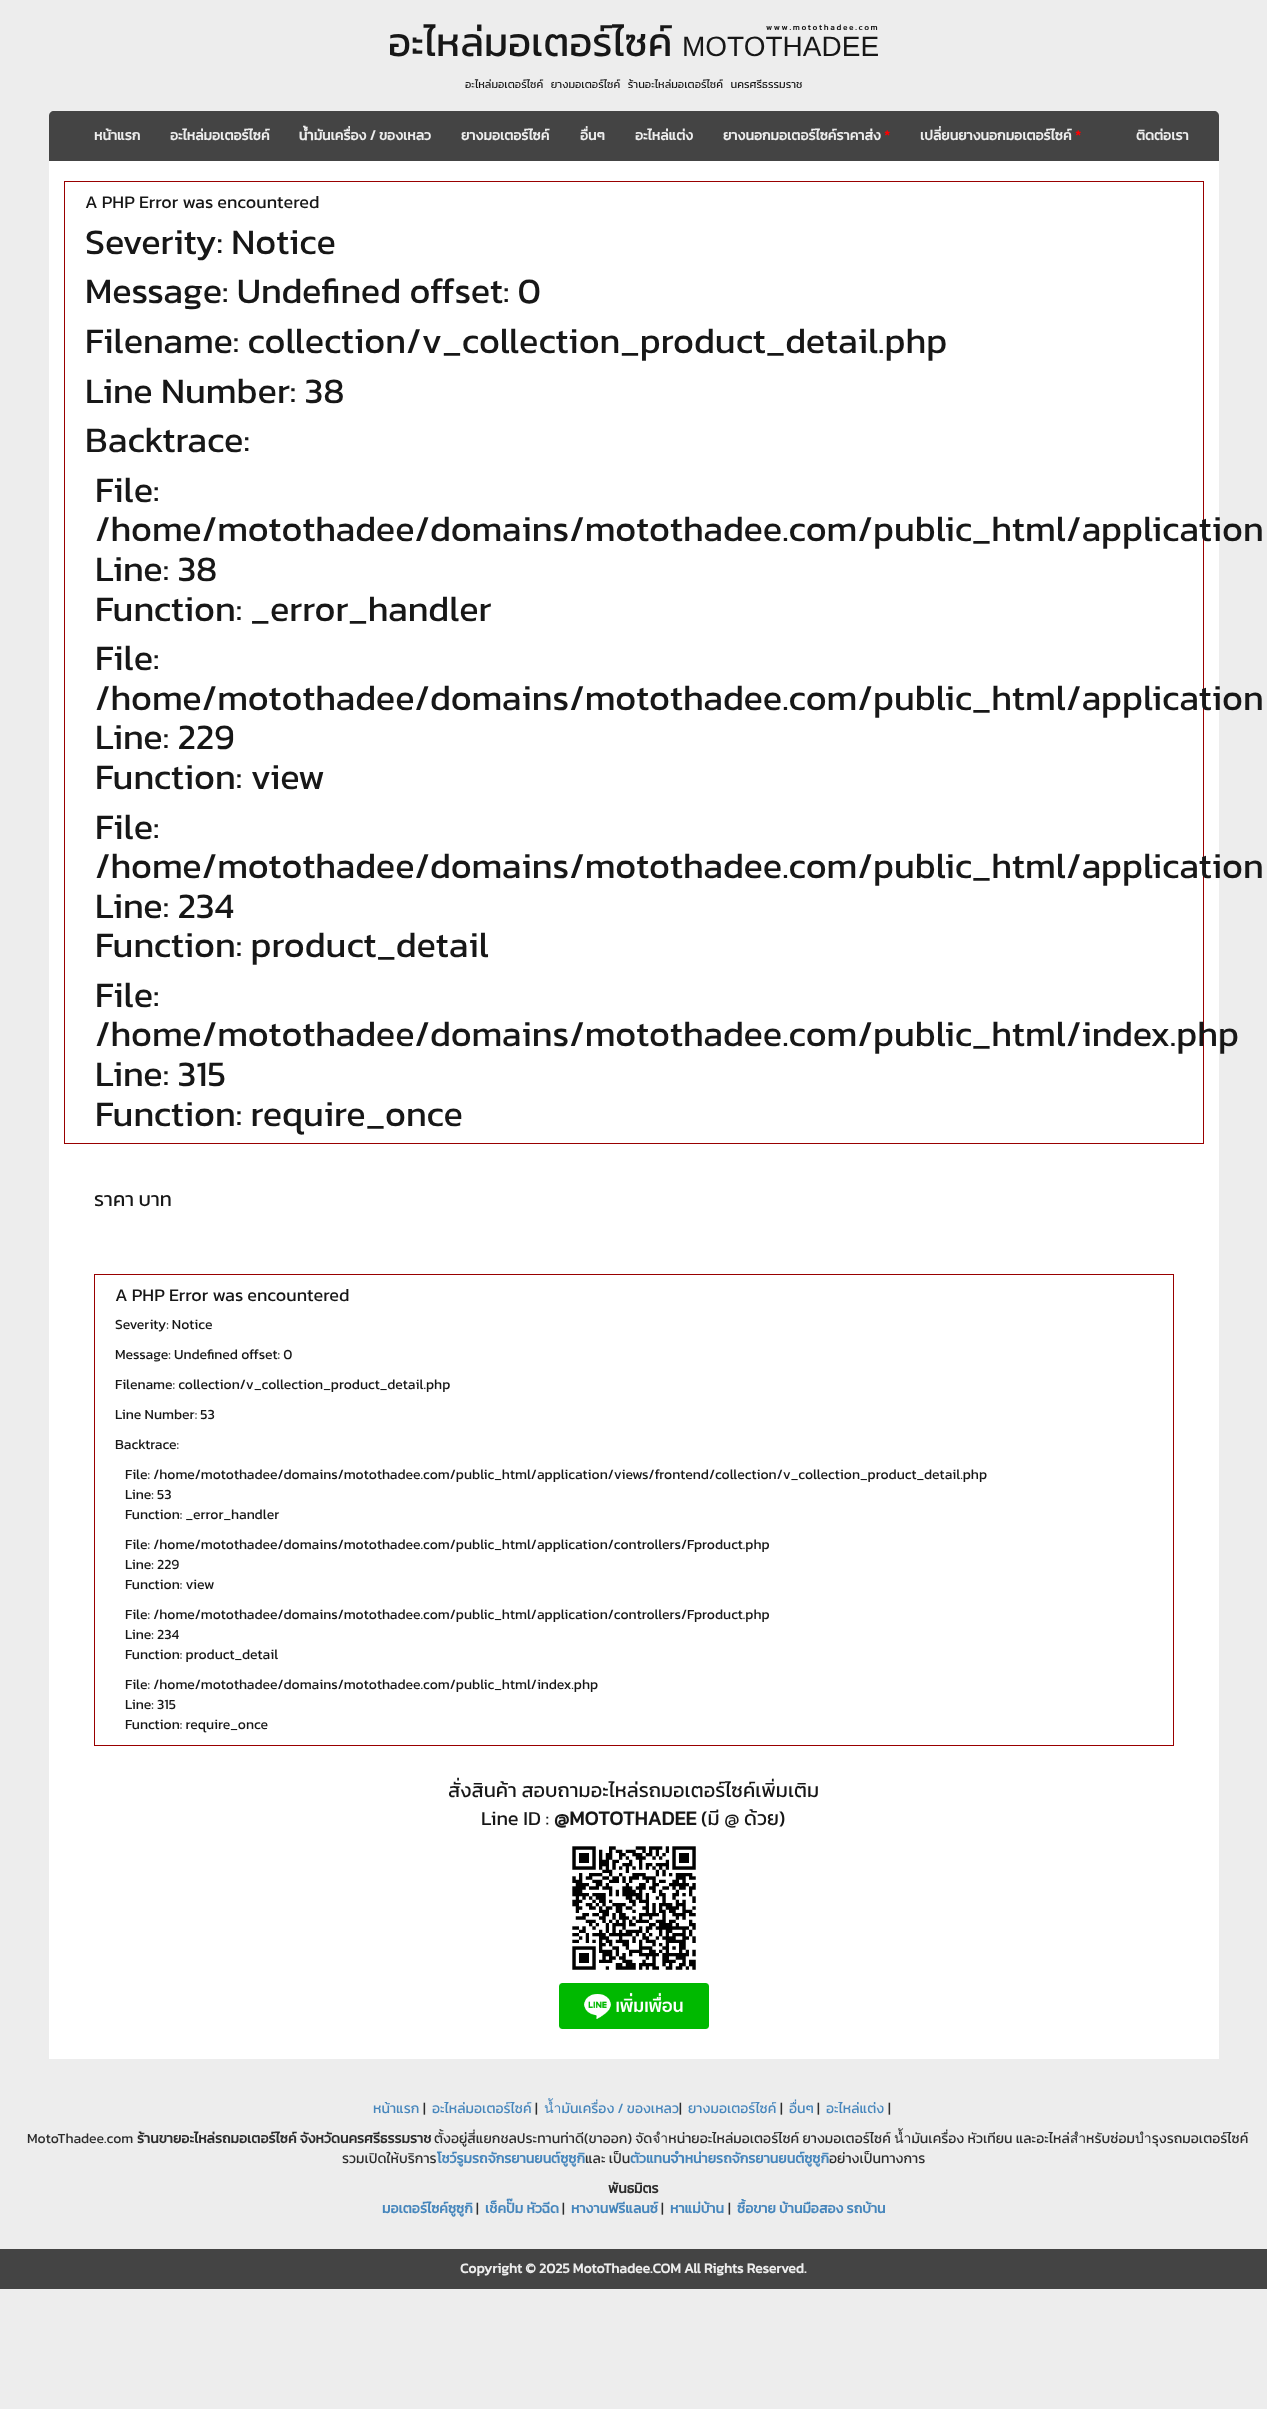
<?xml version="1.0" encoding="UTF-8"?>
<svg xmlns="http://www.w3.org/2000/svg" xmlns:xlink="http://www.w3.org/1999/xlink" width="1267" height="2409">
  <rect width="100%" height="100%" fill="#ededed" />
  <path d="M 54 111 h 1160 c 3 0 5 2 5 5 v 45 h -1170 v -45 c 0 -3 2 -5 5 -5 z" fill="#444444" />
  <rect x="49" y="161" width="1170" height="1898" fill="#ffffff" />
  <rect x="64.5" y="181.5" width="1139" height="962" fill="none" stroke="#990000" />
  <rect x="94.5" y="1274.5" width="1079" height="471" fill="none" stroke="#990000" />
  <image x="572" y="1846" width="124" height="124" xlink:href="image1.png" />
  <image x="559" y="1983" width="150" height="46" xlink:href="image2.png" />
  <rect y="2249" width="1267" height="40" fill="#444444" />
  <text x="388" y="56" style="font-family: Kanit; font-size: 40px; fill: #171717">อะไหล่มอเตอร์ไซค์</text>
  <text x="682" y="56" style="font-family: Liberation Sans; font-size: 28px; fill: #171717">MOTOTHADEE</text>
  <text x="766" y="30" style="font-family: Kanit; font-size: 8px; font-weight: bold; fill: #171717">w w w . m o t o t h a d e e . c o m</text>
  <text x="465" y="88" style="font-family: Kanit; font-size: 11px; fill: #171717" xml:space="preserve">อะไหล่มอเตอร์ไซค์   ยางมอเตอร์ไซค์   ร้านอะไหล่มอเตอร์ไซค์   นครศรีธรรมราช</text>
  <text x="94" y="140" style="font-family: Kanit; font-size: 14px; font-weight: bold; fill: #ededed">หน้าแรก</text>
  <text x="170" y="140" style="font-family: Kanit; font-size: 14px; font-weight: bold; fill: #ededed">อะไหล่มอเตอร์ไซค์</text>
  <text x="299" y="140" style="font-family: Kanit; font-size: 14px; font-weight: bold; fill: #ededed">น้ำมันเครื่อง / ของเหลว</text>
  <text x="461" y="140" style="font-family: Kanit; font-size: 14px; font-weight: bold; fill: #ededed">ยางมอเตอร์ไซค์</text>
  <text x="580" y="140" style="font-family: Kanit; font-size: 14px; font-weight: bold; fill: #ededed">อื่นๆ</text>
  <text x="635" y="140" style="font-family: Kanit; font-size: 14px; font-weight: bold; fill: #ededed">อะไหล่แต่ง</text>
  <text x="723" y="140" style="font-family: Kanit; font-size: 14px; font-weight: bold; fill: #ededed">ยางนอกมอเตอร์ไซค์ราคาส่ง</text>
  <text x="884" y="140" style="font-family: Kanit; font-size: 14px; font-weight: bold; fill: #ff0000">*</text>
  <text x="920" y="140" style="font-family: Kanit; font-size: 14px; font-weight: bold; fill: #ededed">เปลี่ยนยางนอกมอเตอร์ไซค์</text>
  <text x="1075" y="140" style="font-family: Kanit; font-size: 14px; font-weight: bold; fill: #ff0000">*</text>
  <text x="1136" y="140" style="font-family: Kanit; font-size: 14px; font-weight: bold; fill: #ededed">ติดต่อเรา</text>
  <text x="85" y="208" style="font-family: Kanit; font-size: 18px; fill: #171717">A PHP Error was encountered</text>
  <text x="85" y="254" style="font-family: Kanit; font-size: 36px; fill: #171717">Severity: Notice</text>
  <text x="85" y="303" style="font-family: Kanit; font-size: 36px; fill: #171717">Message: Undefined offset: 0</text>
  <text x="85" y="353" style="font-family: Kanit; font-size: 36px; fill: #171717">Filename: collection/v_collection_product_detail.php</text>
  <text x="85" y="403" style="font-family: Kanit; font-size: 36px; fill: #171717">Line Number: 38</text>
  <text x="85" y="452" style="font-family: Kanit; font-size: 36px; fill: #171717">Backtrace:</text>
  <text x="95" y="502" style="font-family: Kanit; font-size: 36px; fill: #171717">File:</text>
  <text x="95" y="541" style="font-family: Kanit; font-size: 36px; fill: #171717">/home/motothadee/domains/motothadee.com/public_html/application</text>
  <text x="95" y="581" style="font-family: Kanit; font-size: 36px; fill: #171717">Line: 38</text>
  <text x="95" y="621" style="font-family: Kanit; font-size: 36px; fill: #171717">Function: _error_handler</text>
  <text x="95" y="670" style="font-family: Kanit; font-size: 36px; fill: #171717">File:</text>
  <text x="95" y="710" style="font-family: Kanit; font-size: 36px; fill: #171717">/home/motothadee/domains/motothadee.com/public_html/application</text>
  <text x="95" y="749" style="font-family: Kanit; font-size: 36px; fill: #171717">Line: 229</text>
  <text x="95" y="789" style="font-family: Kanit; font-size: 36px; fill: #171717">Function: view</text>
  <text x="95" y="839" style="font-family: Kanit; font-size: 36px; fill: #171717">File:</text>
  <text x="95" y="878" style="font-family: Kanit; font-size: 36px; fill: #171717">/home/motothadee/domains/motothadee.com/public_html/application</text>
  <text x="95" y="918" style="font-family: Kanit; font-size: 36px; fill: #171717">Line: 234</text>
  <text x="95" y="957" style="font-family: Kanit; font-size: 36px; fill: #171717">Function: product_detail</text>
  <text x="95" y="1007" style="font-family: Kanit; font-size: 36px; fill: #171717">File:</text>
  <text x="95" y="1046" style="font-family: Kanit; font-size: 36px; fill: #171717">/home/motothadee/domains/motothadee.com/public_html/index.php</text>
  <text x="95" y="1086" style="font-family: Kanit; font-size: 36px; fill: #171717">Line: 315</text>
  <text x="95" y="1126" style="font-family: Kanit; font-size: 36px; fill: #171717">Function: require_once</text>
  <text x="94" y="1206" style="font-family: Kanit; font-size: 20px; fill: #171717">ราคา บาท</text>
  <text x="115" y="1301" style="font-family: Kanit; font-size: 18px; fill: #171717">A PHP Error was encountered</text>
  <text x="115" y="1329" style="font-family: Kanit; font-size: 14px; fill: #171717">Severity: Notice</text>
  <text x="115" y="1359" style="font-family: Kanit; font-size: 14px; fill: #171717">Message: Undefined offset: 0</text>
  <text x="115" y="1389" style="font-family: Kanit; font-size: 14px; fill: #171717">Filename: collection/v_collection_product_detail.php</text>
  <text x="115" y="1419" style="font-family: Kanit; font-size: 14px; fill: #171717">Line Number: 53</text>
  <text x="115" y="1449" style="font-family: Kanit; font-size: 14px; fill: #171717">Backtrace:</text>
  <text x="125" y="1479" style="font-family: Kanit; font-size: 14px; fill: #171717">File: /home/motothadee/domains/motothadee.com/public_html/application/views/frontend/collection/v_collection_product_detail.php</text>
  <text x="125" y="1499" style="font-family: Kanit; font-size: 14px; fill: #171717">Line: 53</text>
  <text x="125" y="1519" style="font-family: Kanit; font-size: 14px; fill: #171717">Function: _error_handler</text>
  <text x="125" y="1549" style="font-family: Kanit; font-size: 14px; fill: #171717">File: /home/motothadee/domains/motothadee.com/public_html/application/controllers/Fproduct.php</text>
  <text x="125" y="1569" style="font-family: Kanit; font-size: 14px; fill: #171717">Line: 229</text>
  <text x="125" y="1589" style="font-family: Kanit; font-size: 14px; fill: #171717">Function: view</text>
  <text x="125" y="1619" style="font-family: Kanit; font-size: 14px; fill: #171717">File: /home/motothadee/domains/motothadee.com/public_html/application/controllers/Fproduct.php</text>
  <text x="125" y="1639" style="font-family: Kanit; font-size: 14px; fill: #171717">Line: 234</text>
  <text x="125" y="1659" style="font-family: Kanit; font-size: 14px; fill: #171717">Function: product_detail</text>
  <text x="125" y="1689" style="font-family: Kanit; font-size: 14px; fill: #171717">File: /home/motothadee/domains/motothadee.com/public_html/index.php</text>
  <text x="125" y="1709" style="font-family: Kanit; font-size: 14px; fill: #171717">Line: 315</text>
  <text x="125" y="1729" style="font-family: Kanit; font-size: 14px; fill: #171717">Function: require_once</text>
  <text x="448" y="1797" style="font-family: Kanit; font-size: 20px; fill: #171717">สั่งสินค้า สอบถามอะไหล่รถมอเตอร์ไซค์เพิ่มเติม</text>
  <text x="481" y="1825" style="font-family: Kanit; font-size: 20px; fill: #171717">Line ID :</text>
  <text x="554" y="1825" style="font-family: Kanit; font-size: 20px; font-weight: bold; fill: #171717">@MOTOTHADEE</text>
  <text x="701" y="1825" style="font-family: Kanit; font-size: 20px; fill: #171717">(มี @ ด้วย)</text>
  <text x="373" y="2113" style="font-family: Kanit; font-size: 14px; fill: #4686bc">หน้าแรก</text>
  <text x="423" y="2113" style="font-family: Kanit; font-size: 14px; fill: #2c2c2c">|</text>
  <text x="432" y="2113" style="font-family: Kanit; font-size: 14px; fill: #4686bc">อะไหล่มอเตอร์ไซค์</text>
  <text x="535" y="2113" style="font-family: Kanit; font-size: 14px; fill: #2c2c2c">|</text>
  <text x="544" y="2113" style="font-family: Kanit; font-size: 14px; fill: #4686bc">น้ำมันเครื่อง / ของเหลว</text>
  <text x="679" y="2113" style="font-family: Kanit; font-size: 14px; fill: #2c2c2c">|</text>
  <text x="688" y="2113" style="font-family: Kanit; font-size: 14px; fill: #4686bc">ยางมอเตอร์ไซค์</text>
  <text x="780" y="2113" style="font-family: Kanit; font-size: 14px; fill: #2c2c2c">|</text>
  <text x="789" y="2113" style="font-family: Kanit; font-size: 14px; fill: #4686bc">อื่นๆ</text>
  <text x="817" y="2113" style="font-family: Kanit; font-size: 14px; fill: #2c2c2c">|</text>
  <text x="826" y="2113" style="font-family: Kanit; font-size: 14px; fill: #4686bc">อะไหล่แต่ง</text>
  <text x="888" y="2113" style="font-family: Kanit; font-size: 14px; fill: #2c2c2c">|</text>
  <text x="27" y="2143" style="font-family: Kanit; font-size: 14px; fill: #2c2c2c">MotoThadee.com</text>
  <text x="137" y="2143" style="font-family: Kanit; font-size: 14px; font-weight: bold; fill: #2c2c2c">ร้านขายอะไหล่รถมอเตอร์ไซค์ จังหวัดนครศรีธรรมราช</text>
  <text x="434" y="2143" style="font-family: Kanit; font-size: 14px; fill: #2c2c2c">ตั้งอยู่สี่แยกชลประทานท่าดี(ขาออก) จัดจำหน่ายอะไหล่มอเตอร์ไซค์ ยางมอเตอร์ไซค์ น้ำมันเครื่อง หัวเทียน และอะไหล่สำหรับซ่อมบำรุงรถมอเตอร์ไซค์</text>
  <text x="342" y="2163" style="font-family: Kanit; font-size: 14px; fill: #2c2c2c">รวมเปิดให้บริการ</text>
  <text x="437" y="2163" style="font-family: Kanit; font-size: 14px; font-weight: bold; fill: #4686bc">โชว์รูมรถจักรยานยนต์ซูซูกิ</text>
  <text x="585" y="2163" style="font-family: Kanit; font-size: 14px; fill: #2c2c2c">และ เป็น</text>
  <text x="630" y="2163" style="font-family: Kanit; font-size: 14px; font-weight: bold; fill: #4686bc">ตัวแทนจำหน่ายรถจักรยานยนต์ซูซูกิ</text>
  <text x="829" y="2163" style="font-family: Kanit; font-size: 14px; fill: #2c2c2c">อย่างเป็นทางการ</text>
  <text x="608" y="2193" style="font-family: Kanit; font-size: 14px; font-weight: bold; fill: #2c2c2c">พันธมิตร</text>
  <text x="382" y="2213" style="font-family: Kanit; font-size: 14px; font-weight: bold; fill: #4686bc">มอเตอร์ไซค์ซูซูกิ</text>
  <text x="476" y="2213" style="font-family: Kanit; font-size: 14px; fill: #2c2c2c">|</text>
  <text x="485" y="2213" style="font-family: Kanit; font-size: 14px; font-weight: bold; fill: #4686bc">เช็คปั๊ม หัวฉีด</text>
  <text x="562" y="2213" style="font-family: Kanit; font-size: 14px; fill: #2c2c2c">|</text>
  <text x="571" y="2213" style="font-family: Kanit; font-size: 14px; font-weight: bold; fill: #4686bc">หางานฟรีแลนซ์</text>
  <text x="661" y="2213" style="font-family: Kanit; font-size: 14px; fill: #2c2c2c">|</text>
  <text x="670" y="2213" style="font-family: Kanit; font-size: 14px; font-weight: bold; fill: #4686bc">หาแม่บ้าน</text>
  <text x="728" y="2213" style="font-family: Kanit; font-size: 14px; fill: #2c2c2c">|</text>
  <text x="737" y="2213" style="font-family: Kanit; font-size: 14px; font-weight: bold; fill: #4686bc">ซื้อขาย บ้านมือสอง รถบ้าน</text>
  <text x="460" y="2273" style="font-family: Kanit; font-size: 14px; font-weight: bold; fill: #ededed">Copyright © 2025 MotoThadee.COM All Rights Reserved.</text>
</svg>
